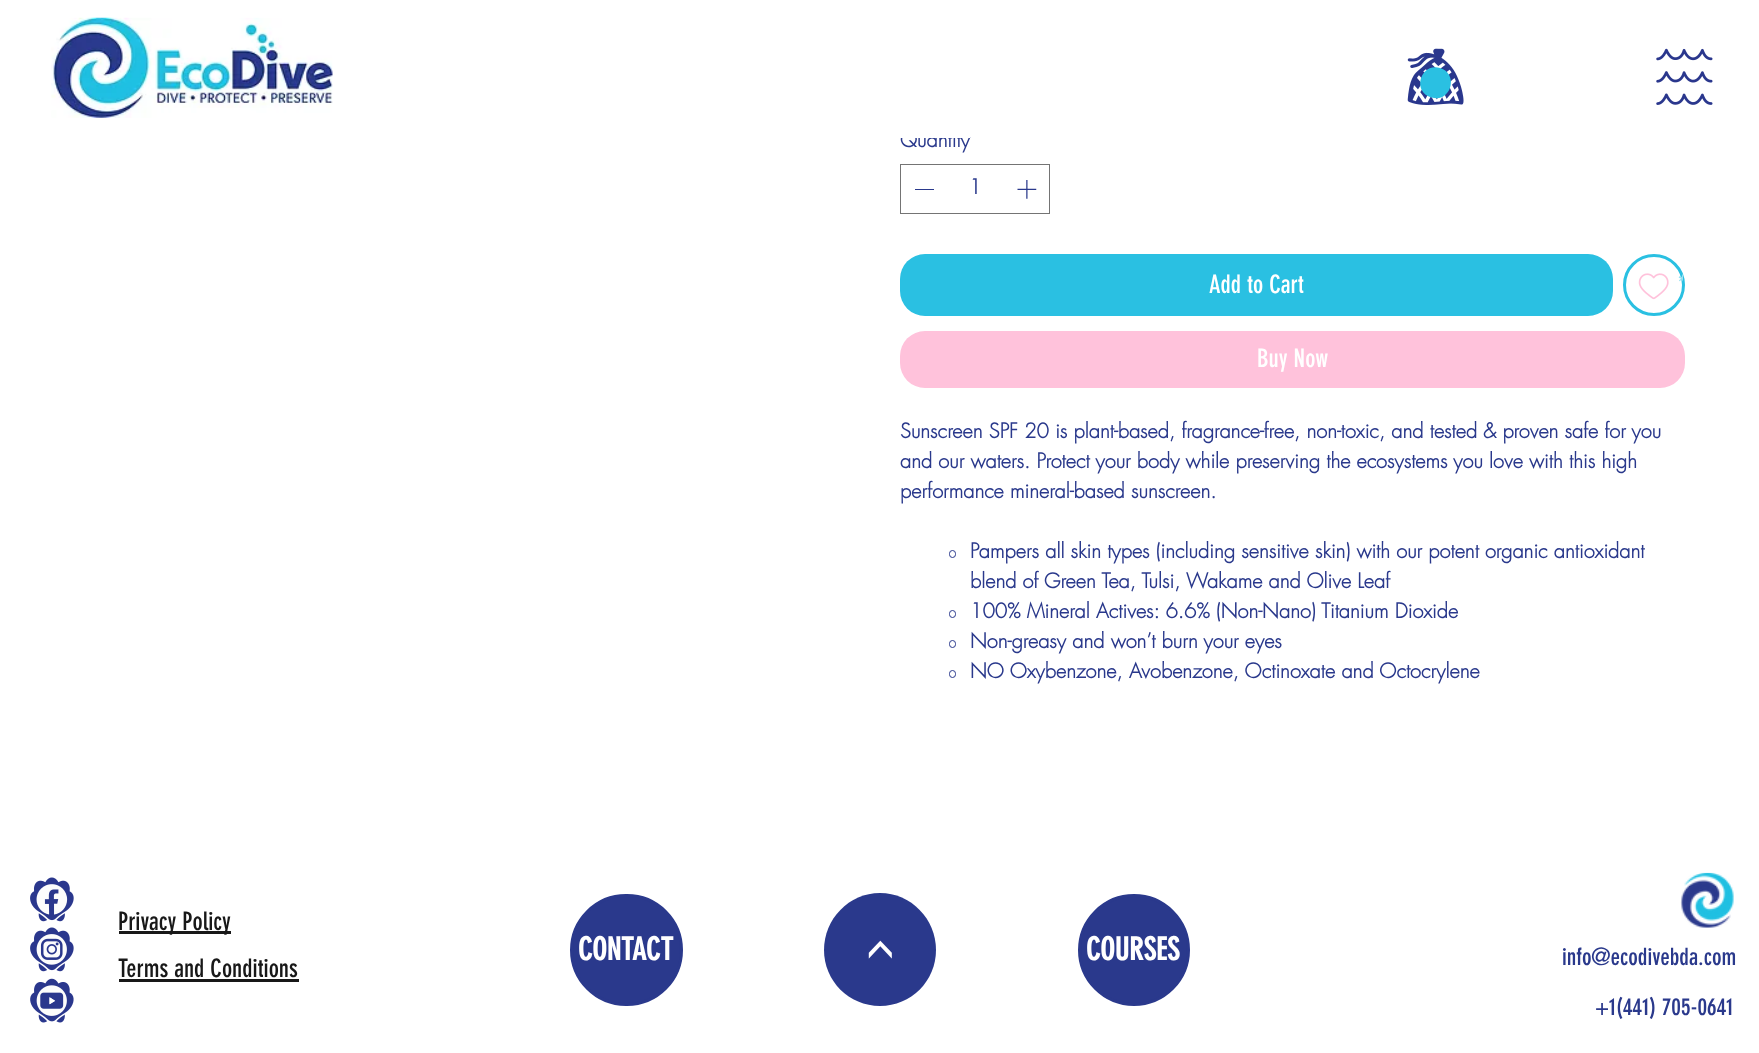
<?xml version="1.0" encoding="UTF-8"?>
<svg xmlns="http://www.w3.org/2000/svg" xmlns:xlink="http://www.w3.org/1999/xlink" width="1759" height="1053">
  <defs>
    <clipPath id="clip1"><rect x="1625" y="265" width="58" height="40" /></clipPath>
  </defs>
  <rect width="100%" height="100%" fill="#ffffff" />
  <image x="51" y="17" width="282" height="101" xlink:href="image1.png" />
  <image x="1407" y="48" width="57" height="57" xlink:href="image2.png" />
  <path d="M 1440 68 c 19.5 6 10.5 35.5 -8.5 29.5 c -20 -5.5 -11 -35 8.5 -29.5 z" fill="#2ac0e2" />
  <image x="1656" y="48" width="57" height="57" xlink:href="image3.png" />
  <rect x="900.5" y="164.5" width="149" height="49" fill="none" stroke="#747474" />
  <rect x="915" y="189" width="19" height="1" fill="#2a398c" />
  <image x="1017" y="180" width="20" height="19" xlink:href="image4.png" />
  <rect x="900" y="254" width="713" height="62" rx="25" fill="#2ac0e2" />
  <circle cx="1654" cy="285" r="29.5" fill="none" stroke="#2ac0e2" stroke-width="3" />
  <image x="1638" y="273" width="31" height="27" xlink:href="image5.png" />
  <rect x="900" y="331" width="785" height="57" rx="25" fill="#ffc2db" />
  <rect x="949.5" y="550.5" width="6" height="7" rx="3" fill="none" stroke="#2a398c" />
  <rect x="949.5" y="610.5" width="6" height="7" rx="3" fill="none" stroke="#2a398c" />
  <rect x="949.5" y="640.5" width="6" height="7" rx="3" fill="none" stroke="#2a398c" />
  <rect x="949.5" y="670.5" width="6" height="7" rx="3" fill="none" stroke="#2a398c" />
  <image x="30" y="877" width="44" height="45" xlink:href="image6.png" />
  <image x="30" y="927" width="44" height="45" xlink:href="image7.png" />
  <image x="30" y="978" width="44" height="45" xlink:href="image8.png" />
  <rect x="119" y="931" width="112" height="3" fill="#181818" />
  <rect x="119" y="979" width="180" height="3" fill="#181818" />
  <rect x="571.5" y="895.5" width="110" height="109" rx="54.5" fill="#2a398c" stroke="#2a398c" stroke-width="3" />
  <path d="M 936 950 c 0 31 -25 56 -56 56 c -31 0 -56 -25 -56 -56 c 0 -31 25 -57 56 -57 c 31 0 56 26 56 57 z" fill="#2a398c" />
  <circle cx="1134" cy="950" r="54.5" fill="#2a398c" stroke="#2a398c" stroke-width="3" />
  <image x="1680" y="872" width="54" height="56" xlink:href="image9.png" />
  <text x="900" y="147" style="font-family: futura; font-size: 20px; font-weight: bold; fill: #2a398c">Quantity</text>
  <rect x="900" y="131" width="70" height="7" fill="#ffffff" />
  <text x="969" y="194" style="font-family: futura; font-size: 20px; font-weight: bold; fill: #2a398c">1</text>
  <text x="1209" y="293" style="font-family: 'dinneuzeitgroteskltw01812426'; font-size: 25px; fill: #ffffff">Add to Cart</text>
  <g clip-path="url(#clip1)">
    <text x="1674" y="293" style="font-family: 'dinneuzeitgroteskltw01812426'; font-size: 25px; font-style: italic; fill: #9be1f1">*</text>
  </g>
  <text x="1257" y="367" style="font-family: 'dinneuzeitgroteskltw01812426'; font-size: 25px; fill: #ffffff">Buy Now</text>
  <text x="900" y="438" style="font-family: futura; font-size: 20px; font-weight: bold; fill: #2a398c">Sunscreen SPF 20 is plant-based, fragrance-free, non-toxic, and tested &amp; proven safe for you</text>
  <text x="900" y="468" style="font-family: futura; font-size: 20px; font-weight: bold; fill: #2a398c">and our waters. Protect your body while preserving the ecosystems you love with this high</text>
  <text x="900" y="498" style="font-family: futura; font-size: 20px; font-weight: bold; fill: #2a398c">performance mineral-based sunscreen.</text>
  <text x="970" y="558" style="font-family: futura; font-size: 20px; font-weight: bold; fill: #2a398c">Pampers all skin types (including sensitive skin) with our potent organic antioxidant</text>
  <text x="970" y="588" style="font-family: futura; font-size: 20px; font-weight: bold; fill: #2a398c">blend of Green Tea, Tulsi, Wakame and Olive Leaf</text>
  <text x="970" y="618" style="font-family: futura; font-size: 20px; font-weight: bold; fill: #2a398c">100% Mineral Actives: 6.6% (Non-Nano) Titanium Dioxide</text>
  <text x="970" y="648" style="font-family: futura; font-size: 20px; font-weight: bold; fill: #2a398c">Non-greasy and won’t burn your eyes</text>
  <text x="970" y="678" style="font-family: futura; font-size: 20px; font-weight: bold; fill: #2a398c">NO Oxybenzone, Avobenzone, Octinoxate and Octocrylene</text>
  <text x="118" y="930" style="font-family: 'dinneuzeitgroteskltw01812426'; font-size: 25px; fill: #181818">Privacy Policy</text>
  <text x="118" y="977" style="font-family: 'dinneuzeitgroteskltw01812426'; font-size: 25px; fill: #181818">Terms and Conditions</text>
  <text x="578" y="960" style="font-family: 'dinneuzeitgroteskltw01812426'; font-size: 31px; font-weight: bold; fill: #ffffff">CONTACT</text>
  <text x="862" y="939" transform="rotate(90 862 939)" style="font-family: Poppins; font-size: 50px; fill: #ffffff">&lt;</text>
  <text x="1086" y="960" style="font-family: 'dinneuzeitgroteskltw01812426'; font-size: 31px; font-weight: bold; fill: #ffffff">COURSES</text>
  <text x="1562" y="965" style="font-family: 'dinneuzeitgroteskltw01812426'; font-size: 23.5px; fill: #2a398c">info@ecodivebda.com</text>
  <text x="1595" y="1015" style="font-family: 'dinneuzeitgroteskltw01812426'; font-size: 23.5px; fill: #2a398c">+1(441) 705-0641</text>
</svg>
